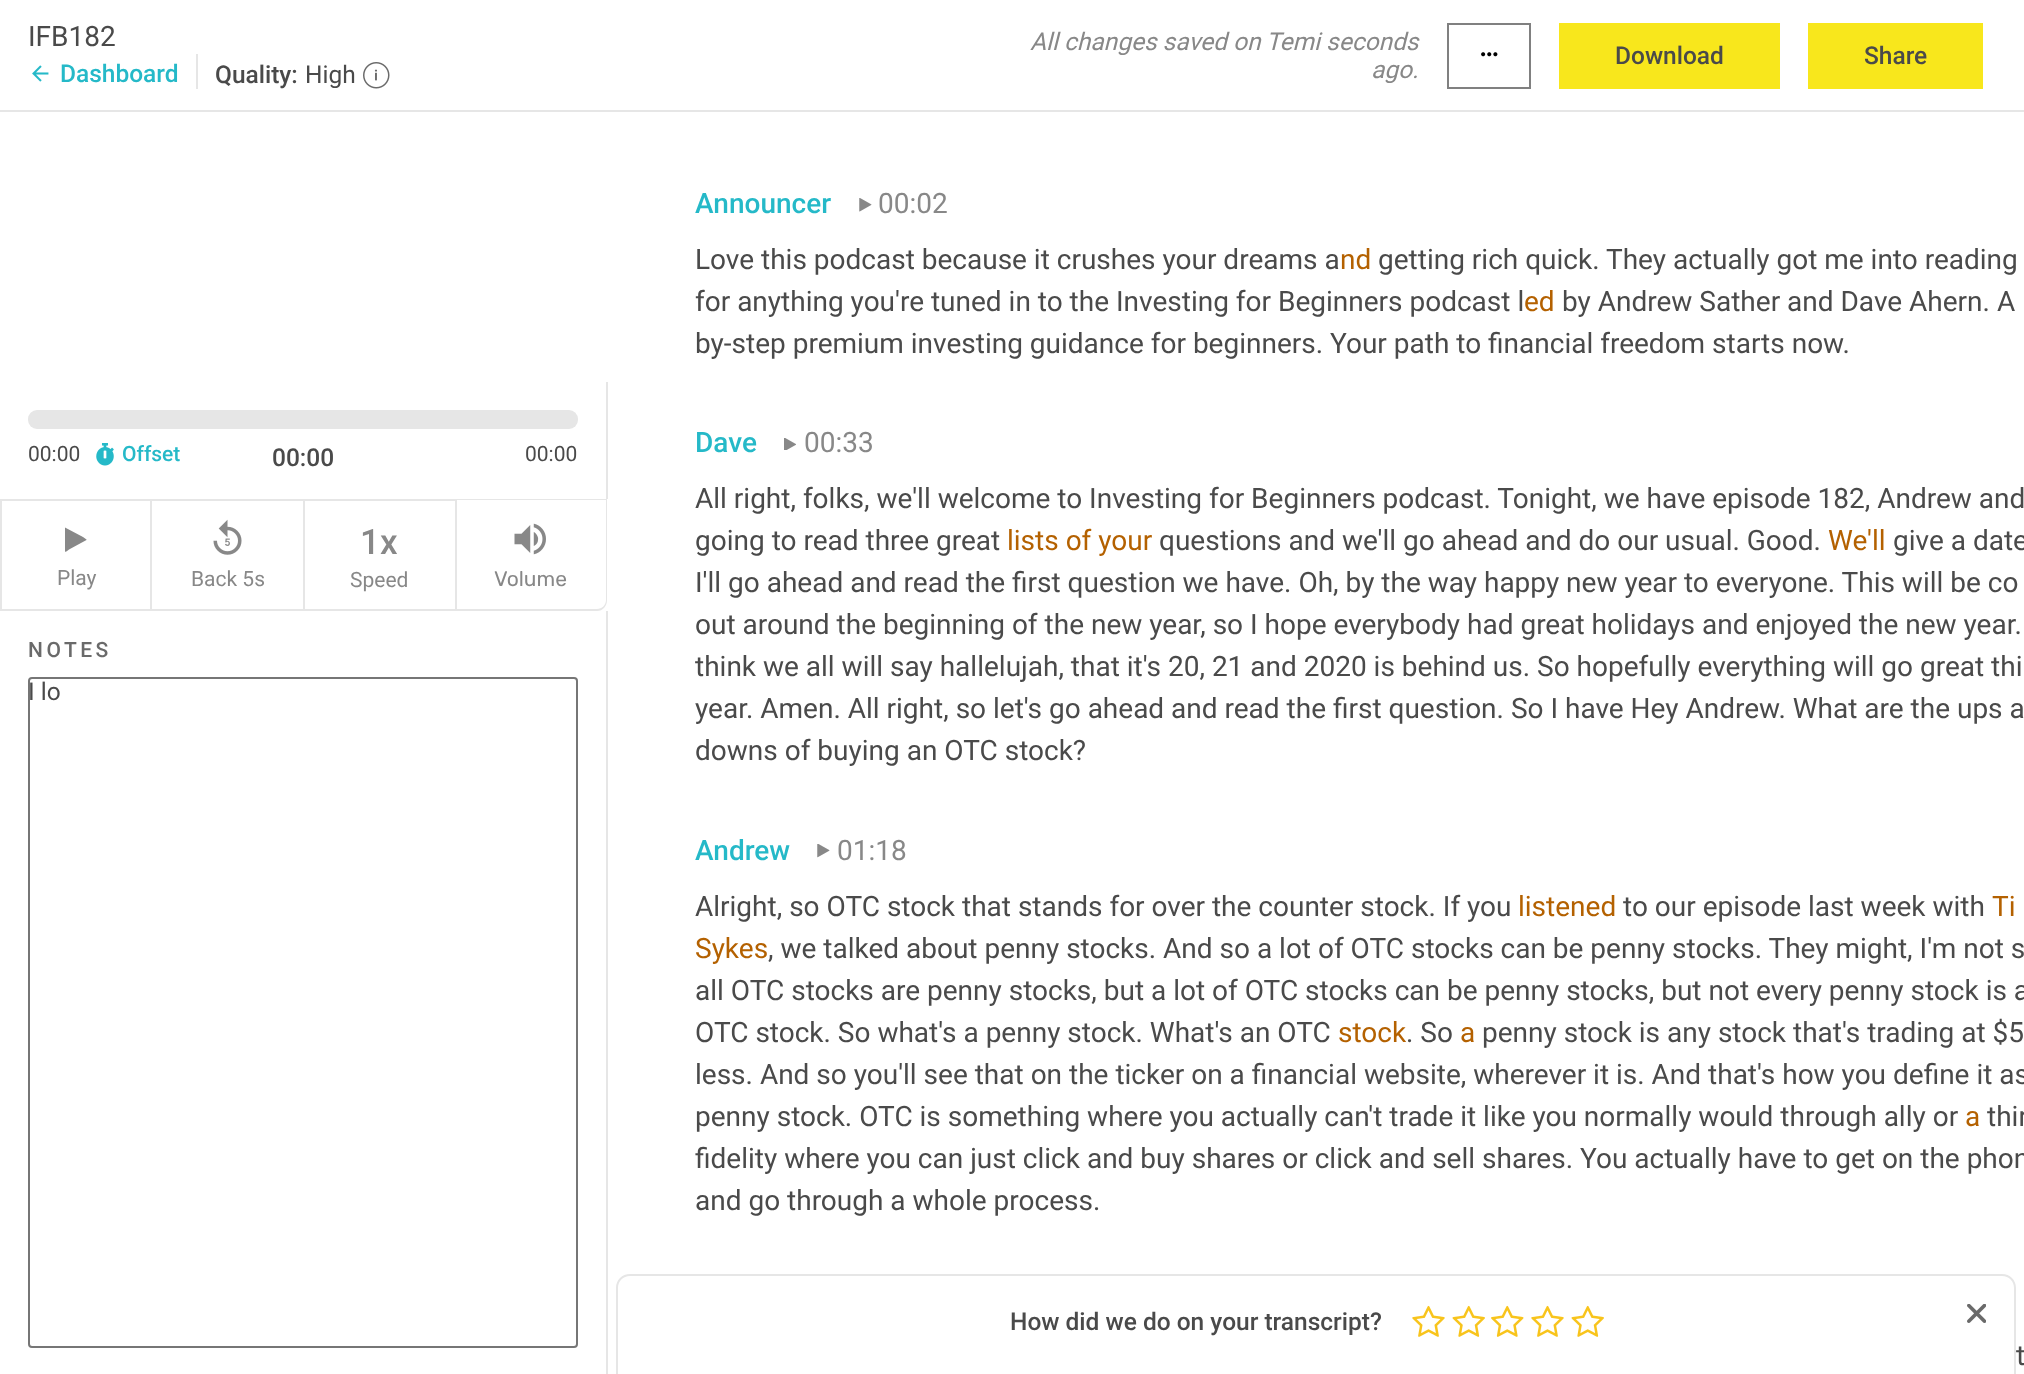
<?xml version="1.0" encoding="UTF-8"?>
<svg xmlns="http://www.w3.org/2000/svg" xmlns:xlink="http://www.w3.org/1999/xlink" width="2024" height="1374">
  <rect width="100%" height="100%" fill="#ffffff" />
  <rect y="110" width="2024" height="2" fill="#e6e6e6" />
  <image x="32" y="65" width="17" height="17" xlink:href="image1.png" />
  <rect x="196" y="54" width="2" height="35" fill="#e6e6e6" />
  <image x="363" y="62" width="27" height="27" xlink:href="image2.png" />
  <rect x="1448" y="24" width="82" height="64" fill="none" stroke="#808080" stroke-width="2" />
  <image x="1481" y="52" width="17" height="5" xlink:href="image3.png" />
  <rect x="1559" y="23" width="221" height="66" fill="#f8e71c" />
  <rect x="1808" y="23" width="175" height="66" fill="#f8e71c" />
  <rect x="606" y="382" width="2" height="117" fill="#e6e6e6" />
  <rect x="28" y="410" width="550" height="19" rx="9" fill="#e6e6e6" />
  <image x="96" y="443" width="18" height="23" xlink:href="image4.png" />
  <rect x="1" y="500" width="150" height="110" fill="none" stroke="#e6e6e6" stroke-width="2" />
  <path d="M 86.5 540 l -17.5 9.5 c -0.5 0.5 -3.5 3 -4 2 v -24 l 18 9.5 l 3.5 2.5 z" fill="#888888" />
  <rect x="152" y="499" width="305" height="2" fill="#e6e6e6" />
  <rect x="303" y="499" width="2" height="112" fill="#e6e6e6" />
  <rect x="152" y="609" width="153" height="2" fill="#e6e6e6" />
  <image x="213" y="519" width="29" height="36" xlink:href="image5.png" />
  <rect x="455" y="499" width="2" height="112" fill="#e6e6e6" />
  <rect x="305" y="609" width="152" height="2" fill="#e6e6e6" />
  <path d="M 457 499 h 150 v 101 c 0 6 -4 11 -10 11 h -140 z m 0 1 h 149 v 100 c 0 5 -4 9 -9 9 h -140 z" fill="#e6e6e6" fill-rule="evenodd" />
  <image x="514" y="523" width="32" height="32" xlink:href="image6.png" />
  <rect x="606" y="611" width="2" height="763" fill="#e6e6e6" />
  <rect x="29" y="678" width="548" height="669" rx="3" fill="none" stroke="#767676" stroke-width="2" />
  <image x="859" y="198" width="13" height="14" xlink:href="image7.png" />
  <image x="784" y="438" width="12" height="12" xlink:href="image8.png" />
  <image x="817" y="844" width="13" height="14" xlink:href="image9.png" />
  <path d="M 630 1274 h 1372 c 8 0 14 6 14 14 v 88 h -1400 v -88 c 0 -8 6 -14 14 -14 z m 0 2 h 1372 c 7 0 12 5 12 12 v 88 h -1396 v -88 c 0 -7 5 -12 12 -12 z" fill="#e6e6e6" fill-rule="evenodd" />
  <image x="1412" y="1305" width="33" height="32" xlink:href="image10.png" />
  <image x="1452" y="1305" width="33" height="32" xlink:href="image11.png" />
  <image x="1491" y="1305" width="33" height="32" xlink:href="image12.png" />
  <image x="1531" y="1305" width="33" height="32" xlink:href="image10.png" />
  <image x="1571" y="1305" width="33" height="32" xlink:href="image11.png" />
  <image x="1967" y="1304" width="19" height="19" xlink:href="image13.png" />
  <text x="28" y="46" style="font-family: Roboto; font-size: 28px; fill: #4a4a4a">IFB182</text>
  <text x="60" y="82" style="font-family: Roboto; font-size: 24.5px; font-weight: 500; fill: #25b9c8">Dashboard</text>
  <text x="215" y="83" style="font-family: Roboto; font-size: 24.5px; font-weight: 500; fill: #4a4a4a">Quality:</text>
  <text x="305" y="83" style="font-family: Roboto; font-size: 24.5px; fill: #4a4a4a">High</text>
  <text x="1030" y="50" style="font-family: Roboto; font-size: 24.5px; font-style: italic; fill: #888888">All changes saved on Temi seconds</text>
  <text x="1371" y="78" style="font-family: Roboto; font-size: 24.5px; font-style: italic; fill: #888888">ago.</text>
  <text x="1615" y="64" style="font-family: Roboto; font-size: 24.5px; font-weight: 500; fill: #4a4a4a">Download</text>
  <text x="1864" y="64" style="font-family: Roboto; font-size: 24.5px; font-weight: 500; fill: #4a4a4a">Share</text>
  <text x="28" y="461" style="font-family: Roboto; font-size: 21px; fill: #4a4a4a">00:00</text>
  <text x="122" y="461" style="font-family: Roboto; font-size: 21px; font-weight: 500; fill: #25b9c8">Offset</text>
  <text x="272" y="466" style="font-family: Roboto; font-size: 24.5px; font-weight: 500; fill: #4a4a4a">00:00</text>
  <text x="525" y="461" style="font-family: Roboto; font-size: 21px; fill: #4a4a4a">00:00</text>
  <text x="57" y="585" style="font-family: Roboto; font-size: 21px; fill: #888888">Play</text>
  <text x="191" y="586" style="font-family: Roboto; font-size: 21px; fill: #888888">Back 5s</text>
  <text x="360" y="554" style="font-family: Roboto; font-size: 35px; font-weight: 500; fill: #888888">1x</text>
  <text x="350" y="587" style="font-family: Roboto; font-size: 21px; fill: #888888">Speed</text>
  <text x="494" y="586" style="font-family: Rubik; font-size: 21px; fill: #888888">Volume</text>
  <text x="28" y="657" style="font-family: Roboto; font-size: 21px; font-weight: 500; letter-spacing: 3.5px; fill: #6a6a6a">NOTES</text>
  <text x="28" y="700" style="font-family: Roboto; font-size: 24.5px; fill: #4a4a4a">I lo</text>
  <text x="695" y="213" style="font-family: Roboto; font-size: 28px; font-weight: 500; fill: #25b9c8">Announcer</text>
  <text x="878" y="213" style="font-family: Roboto; font-size: 28px; fill: #888888">00:02</text>
  <text x="695" y="269" style="font-family: Roboto; font-size: 28px; fill: #4a4a4a">Love this podcast because it crushes your dreams a</text>
  <text x="1340" y="269" style="font-family: Roboto; font-size: 28px; fill: #b46100">nd</text>
  <text x="1378" y="269" style="font-family: Roboto; font-size: 28px; fill: #4a4a4a">getting rich quick. They actually got me into reading</text>
  <text x="695" y="311" style="font-family: Roboto; font-size: 28px; fill: #4a4a4a">for anything you're tuned in to the Investing for Beginners podcast l</text>
  <text x="1524" y="311" style="font-family: Roboto; font-size: 28px; fill: #b46100">ed</text>
  <text x="1562" y="311" style="font-family: Roboto; font-size: 28px; fill: #4a4a4a">by Andrew Sather and Dave Ahern. A</text>
  <text x="695" y="353" style="font-family: Roboto; font-size: 28px; fill: #4a4a4a">by-step premium investing guidance for beginners. Your path to financial freedom starts now.</text>
  <text x="695" y="452" style="font-family: Roboto; font-size: 28px; font-weight: 500; fill: #25b9c8">Dave</text>
  <text x="804" y="452" style="font-family: Roboto; font-size: 28px; fill: #888888">00:33</text>
  <text x="695" y="508" style="font-family: Roboto; font-size: 28px; fill: #4a4a4a">All right, folks, we'll welcome to Investing for Beginners podcast. Tonight, we have episode 182, Andrew and</text>
  <text x="695" y="550" style="font-family: Roboto; font-size: 28px; fill: #4a4a4a">going to read three great</text>
  <text x="1007" y="550" style="font-family: Roboto; font-size: 28px; fill: #b46100">lists of your</text>
  <text x="1159" y="550" style="font-family: Roboto; font-size: 28px; fill: #4a4a4a">questions and we'll go ahead and do our usual. Good.</text>
  <text x="1828" y="550" style="font-family: Roboto; font-size: 28px; fill: #b46100">We'll</text>
  <text x="1893" y="550" style="font-family: Roboto; font-size: 28px; fill: #4a4a4a">give a date</text>
  <text x="695" y="592" style="font-family: Roboto; font-size: 28px; fill: #4a4a4a">I'll go ahead and read the first question we have. Oh, by the way happy new year to everyone. This will be co</text>
  <text x="695" y="634" style="font-family: Roboto; font-size: 28px; fill: #4a4a4a">out around the beginning of the new year, so I hope everybody had great holidays and enjoyed the new year.</text>
  <text x="695" y="676" style="font-family: Roboto; font-size: 28px; fill: #4a4a4a">think we all will say hallelujah, that it's 20, 21 and 2020 is behind us. So hopefully everything will go great thi</text>
  <text x="695" y="718" style="font-family: Roboto; font-size: 28px; fill: #4a4a4a">year. Amen. All right, so let's go ahead and read the first question. So I have Hey Andrew. What are the ups a</text>
  <text x="695" y="760" style="font-family: Roboto; font-size: 28px; fill: #4a4a4a">downs of buying an OTC stock?</text>
  <text x="695" y="860" style="font-family: Roboto; font-size: 28px; font-weight: 500; fill: #25b9c8">Andrew</text>
  <text x="837" y="860" style="font-family: Roboto; font-size: 28px; fill: #888888">01:18</text>
  <text x="695" y="916" style="font-family: Roboto; font-size: 28px; fill: #4a4a4a">Alright, so OTC stock that stands for over the counter stock. If you</text>
  <text x="1518" y="916" style="font-family: Roboto; font-size: 28px; fill: #b46100">listened</text>
  <text x="1623" y="916" style="font-family: Roboto; font-size: 28px; fill: #4a4a4a">to our episode last week with</text>
  <text x="1992" y="916" style="font-family: Roboto; font-size: 28px; fill: #b46100">Ti</text>
  <text x="695" y="958" style="font-family: Roboto; font-size: 28px; fill: #b46100">Sykes</text>
  <text x="768" y="958" style="font-family: Roboto; font-size: 28px; fill: #4a4a4a">, we talked about penny stocks. And so a lot of OTC stocks can be penny stocks. They might, I'm not s</text>
  <text x="695" y="1000" style="font-family: Roboto; font-size: 28px; fill: #4a4a4a">all OTC stocks are penny stocks, but a lot of OTC stocks can be penny stocks, but not every penny stock is a</text>
  <text x="695" y="1042" style="font-family: Roboto; font-size: 28px; fill: #4a4a4a">OTC stock. So what's a penny stock. What's an OTC</text>
  <text x="1338" y="1042" style="font-family: Roboto; font-size: 28px; fill: #b46100">stock</text>
  <text x="1406" y="1042" style="font-family: Roboto; font-size: 28px; fill: #4a4a4a">. So</text>
  <text x="1460" y="1042" style="font-family: Roboto; font-size: 28px; fill: #b46100">a</text>
  <text x="1482" y="1042" style="font-family: Roboto; font-size: 28px; fill: #4a4a4a">penny stock is any stock that's trading at $5</text>
  <text x="695" y="1084" style="font-family: Roboto; font-size: 28px; fill: #4a4a4a">less. And so you'll see that on the ticker on a financial website, wherever it is. And that's how you define it as</text>
  <text x="695" y="1126" style="font-family: Roboto; font-size: 28px; fill: #4a4a4a">penny stock. OTC is something where you actually can't trade it like you normally would through ally or</text>
  <text x="1965" y="1126" style="font-family: Roboto; font-size: 28px; fill: #b46100">a</text>
  <text x="1987" y="1126" style="font-family: Roboto; font-size: 28px; fill: #4a4a4a">thir</text>
  <text x="695" y="1168" style="font-family: Roboto; font-size: 28px; fill: #4a4a4a">fidelity where you can just click and buy shares or click and sell shares. You actually have to get on the phon</text>
  <text x="695" y="1210" style="font-family: Roboto; font-size: 28px; fill: #4a4a4a">and go through a whole process.</text>
  <text x="2016" y="1365" style="font-family: Roboto; font-size: 28px; fill: #4a4a4a">t</text>
  <text x="1010" y="1330" style="font-family: Roboto; font-size: 24.5px; font-weight: 500; fill: #4a4a4a">How did we do on your transcript?</text>
</svg>
